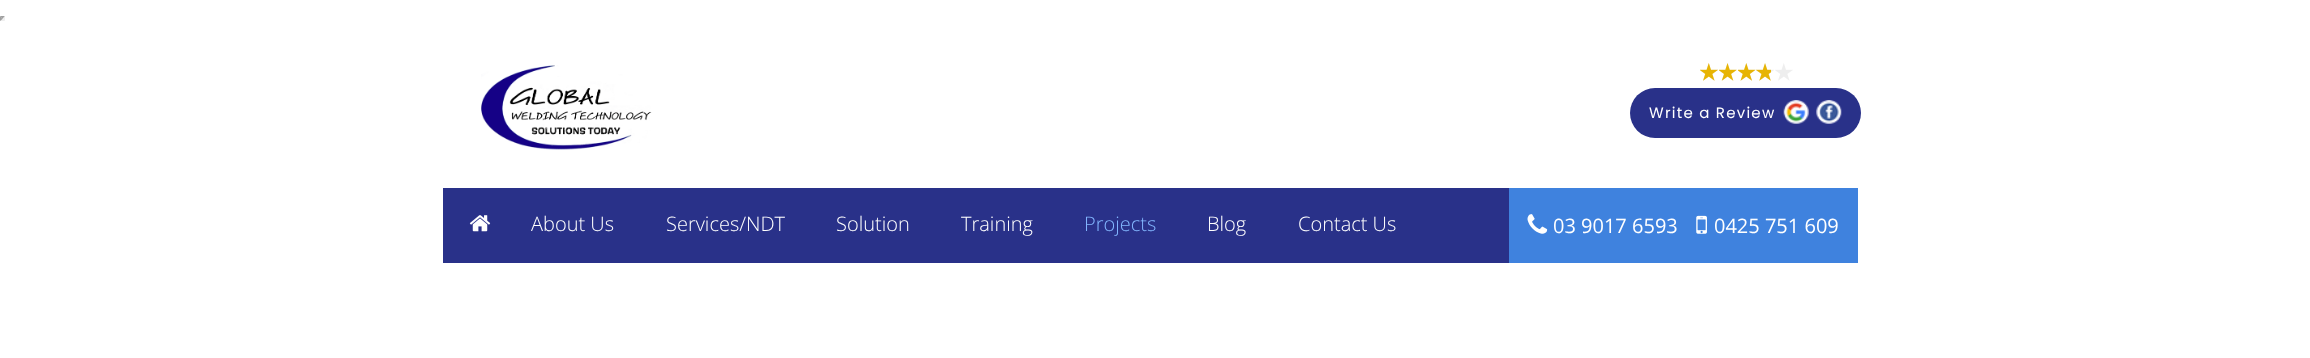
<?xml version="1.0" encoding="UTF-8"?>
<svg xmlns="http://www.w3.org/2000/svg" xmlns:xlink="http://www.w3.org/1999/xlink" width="2310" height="358">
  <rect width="100%" height="100%" fill="#ffffff" />
  <path d="M 0 16 h 5 l -2.5 3 z" fill="#9f9f9f" />
  <path d="M 5 16 v 5 l -2.5 -2 z" fill="#eeeeee" />
  <path d="M 5 21 h -5 l 2.5 -2 z" fill="#eeeeee" />
  <path d="M 0 21 v -5 l 2.5 3 z" fill="#9f9f9f" />
  <image x="481" y="65" width="171" height="85" xlink:href="image1.png" />
  <rect x="1630" y="88" width="231" height="50" rx="25" fill="#293189" />
  <image x="1700" y="63" width="18" height="18" xlink:href="image2.png" />
  <image x="1719" y="63" width="17" height="18" xlink:href="image3.png" />
  <image x="1738" y="63" width="17" height="18" xlink:href="image4.png" />
  <image x="1756" y="64" width="18" height="17" xlink:href="image5.png" />
  <image x="1775" y="63" width="18" height="18" xlink:href="image2.png" />
  <image x="1700" y="63" width="18" height="18" xlink:href="image6.png" />
  <image x="1719" y="63" width="18" height="18" xlink:href="image7.png" />
  <image x="1738" y="63" width="18" height="18" xlink:href="image8.png" />
  <image x="1756" y="63" width="15" height="18" xlink:href="image9.png" />
  <image x="1783" y="100" width="26" height="24" xlink:href="image10.png" />
  <image x="1816" y="100" width="26" height="24" xlink:href="image11.png" />
  <rect x="443" y="188" width="1066" height="75" fill="#293189" />
  <image x="469" y="215" width="22" height="17" xlink:href="image12.png" />
  <rect x="1509" y="188" width="349" height="75" fill="#3f82de" />
  <image x="1527" y="214" width="21" height="20" xlink:href="image13.png" />
  <image x="1696" y="215" width="11" height="19" xlink:href="image14.png" />
  <text x="1649" y="118" style="font-family: Poppins; font-size: 15px; letter-spacing: 1.25px; fill: #ffffff">Write a Review</text>
  <text x="531" y="231" style="font-family: Open Sans; font-size: 20px; font-weight: 300; fill: #ffffff">About Us</text>
  <text x="666" y="231" style="font-family: Open Sans; font-size: 20px; font-weight: 300; fill: #ffffff">Services/NDT</text>
  <text x="836" y="231" style="font-family: Open Sans; font-size: 20px; font-weight: 300; fill: #ffffff">Solution</text>
  <text x="961" y="231" style="font-family: Open Sans; font-size: 20px; font-weight: 300; fill: #ffffff">Training</text>
  <text x="1084" y="231" style="font-family: Open Sans; font-size: 20px; font-weight: 300; fill: #83b7ff">Projects</text>
  <text x="1207" y="231" style="font-family: Open Sans; font-size: 20px; font-weight: 300; fill: #ffffff">Blog</text>
  <text x="1298" y="231" style="font-family: Open Sans; font-size: 20px; font-weight: 300; fill: #ffffff">Contact Us</text>
  <text x="1553" y="233" style="font-family: Open Sans; font-size: 20px; fill: #ffffff">03 9017 6593</text>
  <text x="1714" y="233" style="font-family: Open Sans; font-size: 20px; fill: #ffffff">0425 751 609</text>
</svg>
